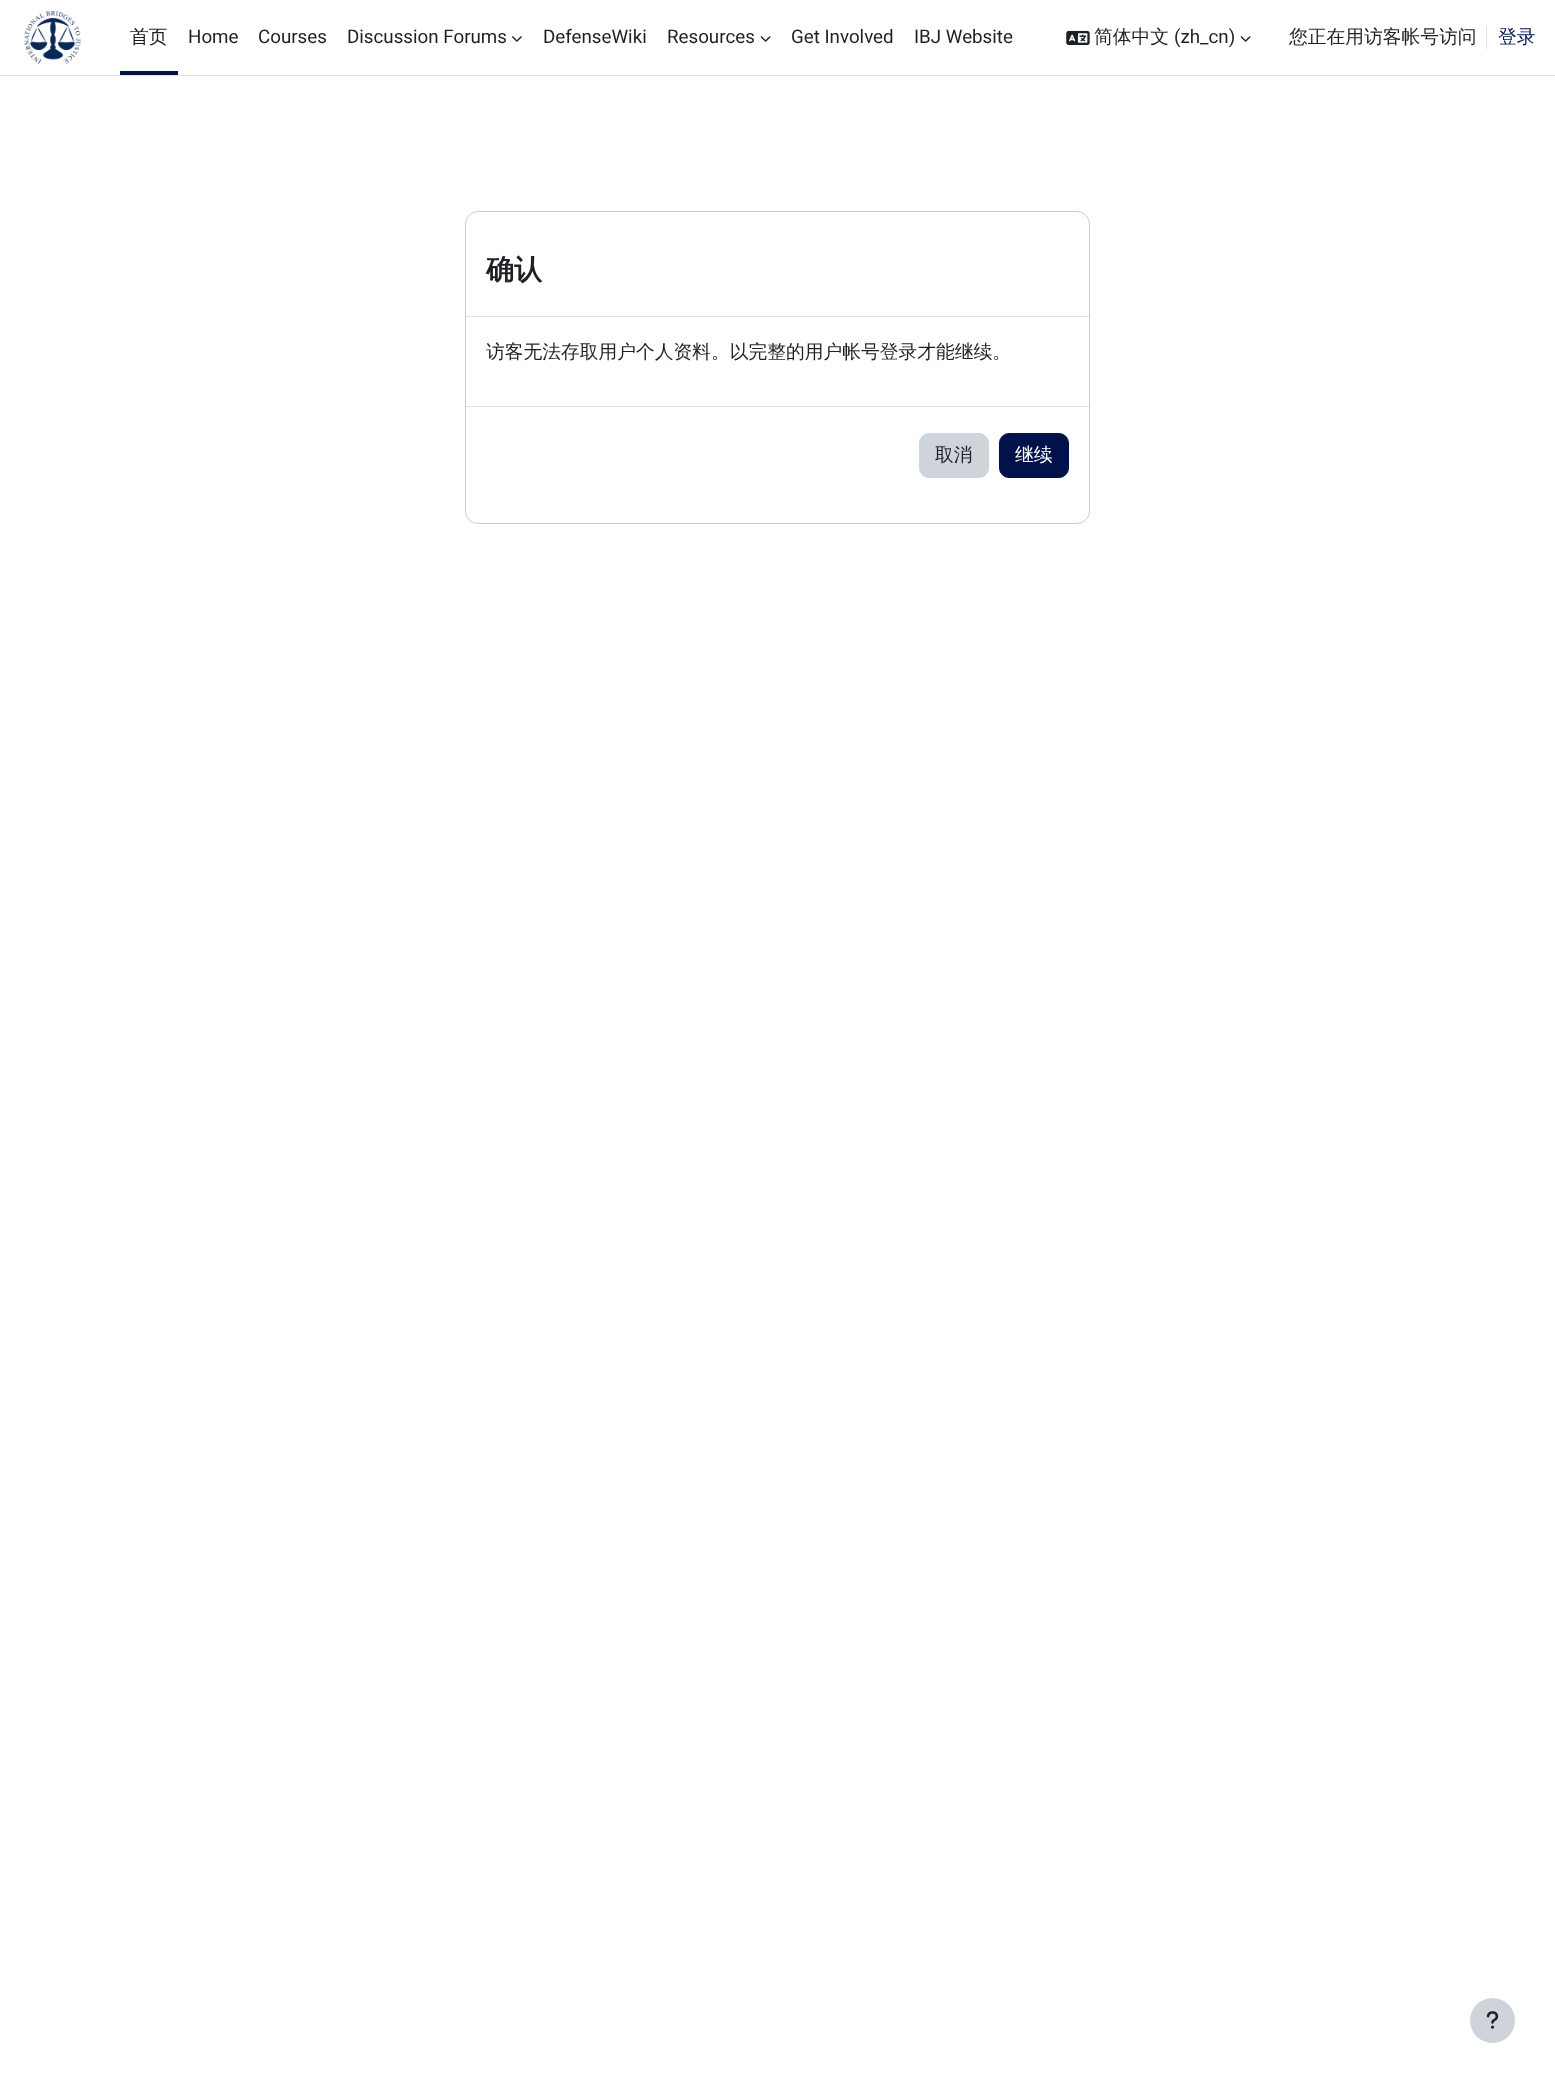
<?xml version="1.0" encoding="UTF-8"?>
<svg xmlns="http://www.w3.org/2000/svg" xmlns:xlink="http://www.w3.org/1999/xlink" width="1555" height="2082">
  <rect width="100%" height="100%" fill="#ffffff" />
  <rect y="75" width="1555" height="1" fill="#dee2e6" />
  <image x="24" y="11" width="57" height="53" xlink:href="image1.png" />
  <rect x="120" y="71" width="58" height="4" fill="#01124b" />
  <image x="512" y="36" width="10" height="6" xlink:href="image2.png" />
  <image x="760" y="36" width="11" height="6" xlink:href="image3.png" />
  <image x="1066" y="30" width="24" height="15" xlink:href="image4.png" />
  <image x="1240" y="36" width="11" height="6" xlink:href="image3.png" />
  <rect x="1486" y="26" width="1" height="23" fill="#dee2e6" />
  <rect x="465.5" y="211.5" width="624" height="312" rx="12.5" fill="none" stroke="#cccccc" />
  <rect x="466" y="316" width="623" height="1" fill="#dee2e6" />
  <rect x="466" y="406" width="623" height="1" fill="#dee2e6" />
  <rect x="919.5" y="433.5" width="69" height="44" rx="9.5" fill="#ced4da" stroke="#ced4da" />
  <rect x="999.5" y="433.5" width="69" height="44" rx="9.5" fill="#01124b" stroke="#01124b" />
  <circle cx="1492.5" cy="2020.5" r="22.5" fill="#ced4da" />
  <image x="1486" y="2011" width="13" height="18" xlink:href="image5.png" />
  <text x="130" y="43" style="font-family: WenQuanYi Zen Hei; font-size: 18.75px; font-weight: 500; fill: #1a1a1a">首页</text>
  <text x="188" y="43" style="font-family: Roboto; font-size: 18.75px; fill: #1d2125">Home</text>
  <text x="258" y="43" style="font-family: Roboto; font-size: 18.75px; fill: #1d2125">Courses</text>
  <text x="347" y="43" style="font-family: Roboto; font-size: 18.75px; fill: #1d2125">Discussion Forums</text>
  <text x="543" y="43" style="font-family: Roboto; font-size: 18.75px; fill: #1d2125">DefenseWiki</text>
  <text x="667" y="43" style="font-family: Roboto; font-size: 18.75px; fill: #1d2125">Resources</text>
  <text x="791" y="43" style="font-family: Roboto; font-size: 18.75px; fill: #1d2125">Get Involved</text>
  <text x="914" y="43" style="font-family: Roboto; font-size: 18.75px; fill: #1d2125">IBJ Website</text>
  <text x="1094" y="43" style="font-family: WenQuanYi Zen Hei; font-size: 18.75px; font-weight: 500; fill: #1d2125">简体中文</text>
  <text x="1174" y="43" style="font-family: Roboto; font-size: 18.75px; fill: #1d2125">(zh_cn)</text>
  <text x="1289" y="43" style="font-family: WenQuanYi Zen Hei; font-size: 18.75px; font-weight: 500; fill: #1d2125">您正在用访客帐号访问</text>
  <text x="1498" y="43" style="font-family: WenQuanYi Zen Hei; font-size: 18.75px; font-weight: 500; fill: #01124b">登录</text>
  <text x="486" y="279" style="font-family: WenQuanYi Zen Hei; font-size: 28px; font-weight: bold; fill: #1d2125">确认</text>
  <text x="486" y="358" style="font-family: WenQuanYi Zen Hei; font-size: 18.75px; font-weight: 500; fill: #1d2125">访客无法存取用户个人资料。以完整的用户帐号登录才能继续。</text>
  <text x="935" y="461" style="font-family: WenQuanYi Zen Hei; font-size: 18.75px; font-weight: 500; fill: #1d2125">取消</text>
  <text x="1015" y="461" style="font-family: WenQuanYi Zen Hei; font-size: 18.75px; font-weight: 500; fill: #ffffff">继续</text>
</svg>
